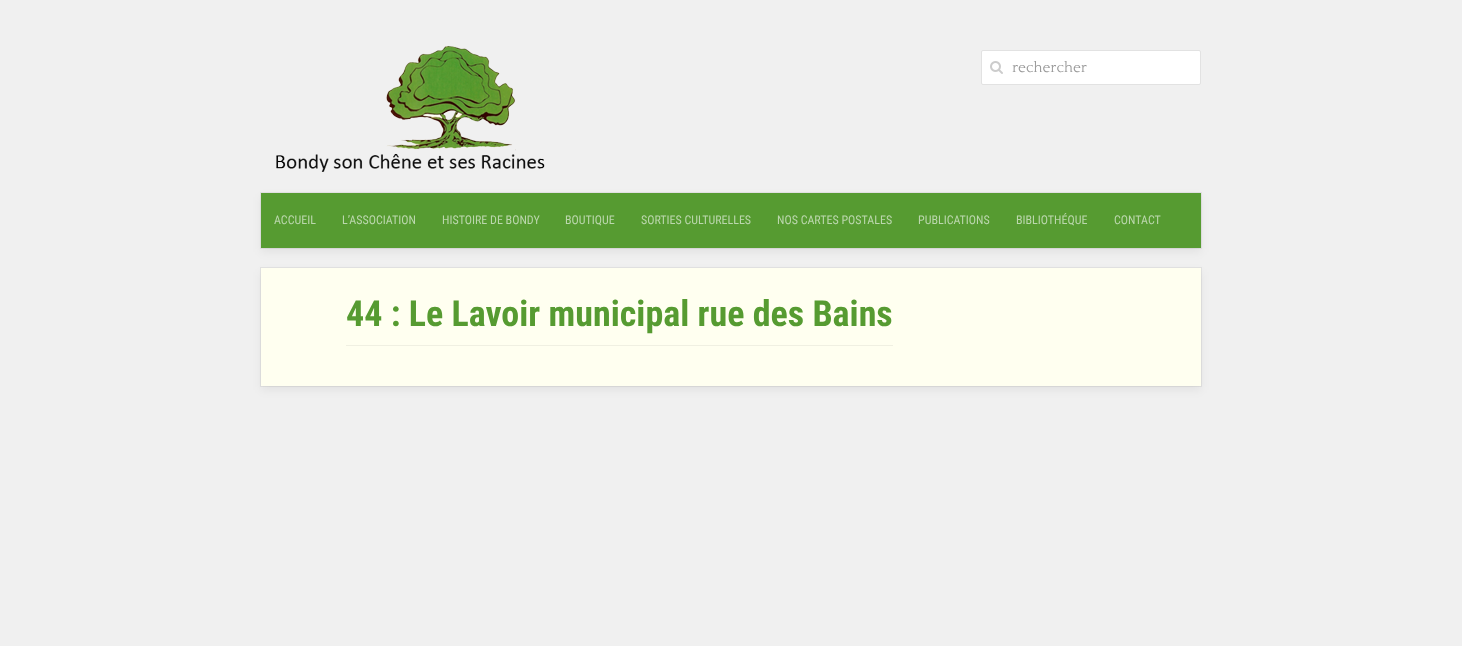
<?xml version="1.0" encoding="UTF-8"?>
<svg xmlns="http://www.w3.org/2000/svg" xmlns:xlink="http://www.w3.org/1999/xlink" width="1462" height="646">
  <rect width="100%" height="100%" fill="#f0f0f0" />
  <image x="276" y="45" width="269" height="127" xlink:href="image1.png" />
  <rect x="981.5" y="50.5" width="219" height="34" rx="1.5" fill="#ffffff" stroke="#e2e2e2" />
  <image x="990" y="61" width="13" height="13" xlink:href="image2.png" />
  <rect x="261" y="197" width="940" height="55" fill="#000000" fill-opacity="0.06" filter="blur(5px)" />
  <rect x="260.5" y="192.5" width="941" height="56" fill="none" stroke="#000000" stroke-opacity="0.06" />
  <rect x="261" y="193" width="940" height="55" fill="#569b31" />
  <rect x="261" y="272" width="940" height="118" fill="#000000" fill-opacity="0.06" filter="blur(5px)" />
  <rect x="260.5" y="267.5" width="941" height="119" fill="none" stroke="#000000" stroke-opacity="0.06" />
  <rect x="261" y="268" width="940" height="118" fill="#fffff0" />
  <rect x="346" y="345" width="547" height="1" fill="#f0f0e2" />
  <text x="1012" y="72" style="font-family: Quattrocento; font-size: 15px; fill: #999999">rechercher</text>
  <text x="274" y="224" style="font-family: Roboto Condensed; font-size: 12px; fill: #bbd7ad">ACCUEIL</text>
  <text x="342" y="224" style="font-family: Roboto Condensed; font-size: 12px; fill: #bbd7ad">L’ASSOCIATION</text>
  <text x="442" y="224" style="font-family: Roboto Condensed; font-size: 12px; fill: #bbd7ad">HISTOIRE DE BONDY</text>
  <text x="565" y="224" style="font-family: Roboto Condensed; font-size: 12px; fill: #bbd7ad">BOUTIQUE</text>
  <text x="641" y="224" style="font-family: Roboto Condensed; font-size: 12px; fill: #bbd7ad">SORTIES CULTURELLES</text>
  <text x="777" y="224" style="font-family: Roboto Condensed; font-size: 12px; fill: #bbd7ad">NOS CARTES POSTALES</text>
  <text x="918" y="224" style="font-family: Roboto Condensed; font-size: 12px; fill: #bbd7ad">PUBLICATIONS</text>
  <text x="1016" y="224" style="font-family: Roboto Condensed; font-size: 12px; fill: #bbd7ad">BIBLIOTHÉQUE</text>
  <text x="1114" y="224" style="font-family: Roboto Condensed; font-size: 12px; fill: #bbd7ad">CONTACT</text>
  <text x="346" y="326" style="font-family: Roboto Condensed; font-size: 36px; font-weight: bold; fill: #569b31">44 : Le Lavoir municipal rue des Bains</text>
</svg>
